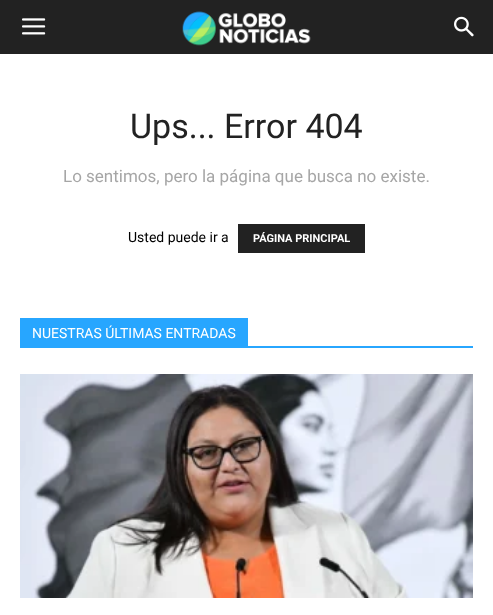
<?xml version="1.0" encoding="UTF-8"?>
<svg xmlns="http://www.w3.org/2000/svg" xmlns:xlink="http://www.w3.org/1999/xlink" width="493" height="615">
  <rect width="100%" height="100%" fill="#ffffff" />
  <rect width="493" height="54" fill="#222222" />
  <image x="22" y="18" width="24" height="17" xlink:href="image1.png" />
  <image x="182" y="11" width="129" height="35" xlink:href="image2.png" />
  <image x="454" y="16" width="20" height="21" xlink:href="image3.png" />
  <rect x="238" y="224" width="127" height="29" fill="#222222" />
  <rect x="20" y="346" width="453" height="2" fill="#27a6ff" />
  <rect x="20" y="318" width="228" height="28" fill="#27a6ff" />
  <image x="20" y="374" width="453" height="224" xlink:href="image4.png" />
  <text x="130" y="138" style="font-family: Roboto; font-size: 34px; fill: #222222">Ups... Error 404</text>
  <text x="63" y="182" style="font-family: Roboto; font-size: 17px; fill: #a6a6a6">Lo sentimos, pero la página que busca no existe.</text>
  <text x="128" y="242" style="font-family: Roboto; font-size: 14px; fill: #000000">Usted puede ir a</text>
  <text x="253" y="242" style="font-family: Roboto; font-size: 11px; font-weight: bold; fill: #ffffff">PÁGINA PRINCIPAL</text>
  <text x="32" y="338" style="font-family: Roboto; font-size: 14px; fill: #ffffff">NUESTRAS ÚLTIMAS ENTRADAS</text>
</svg>
